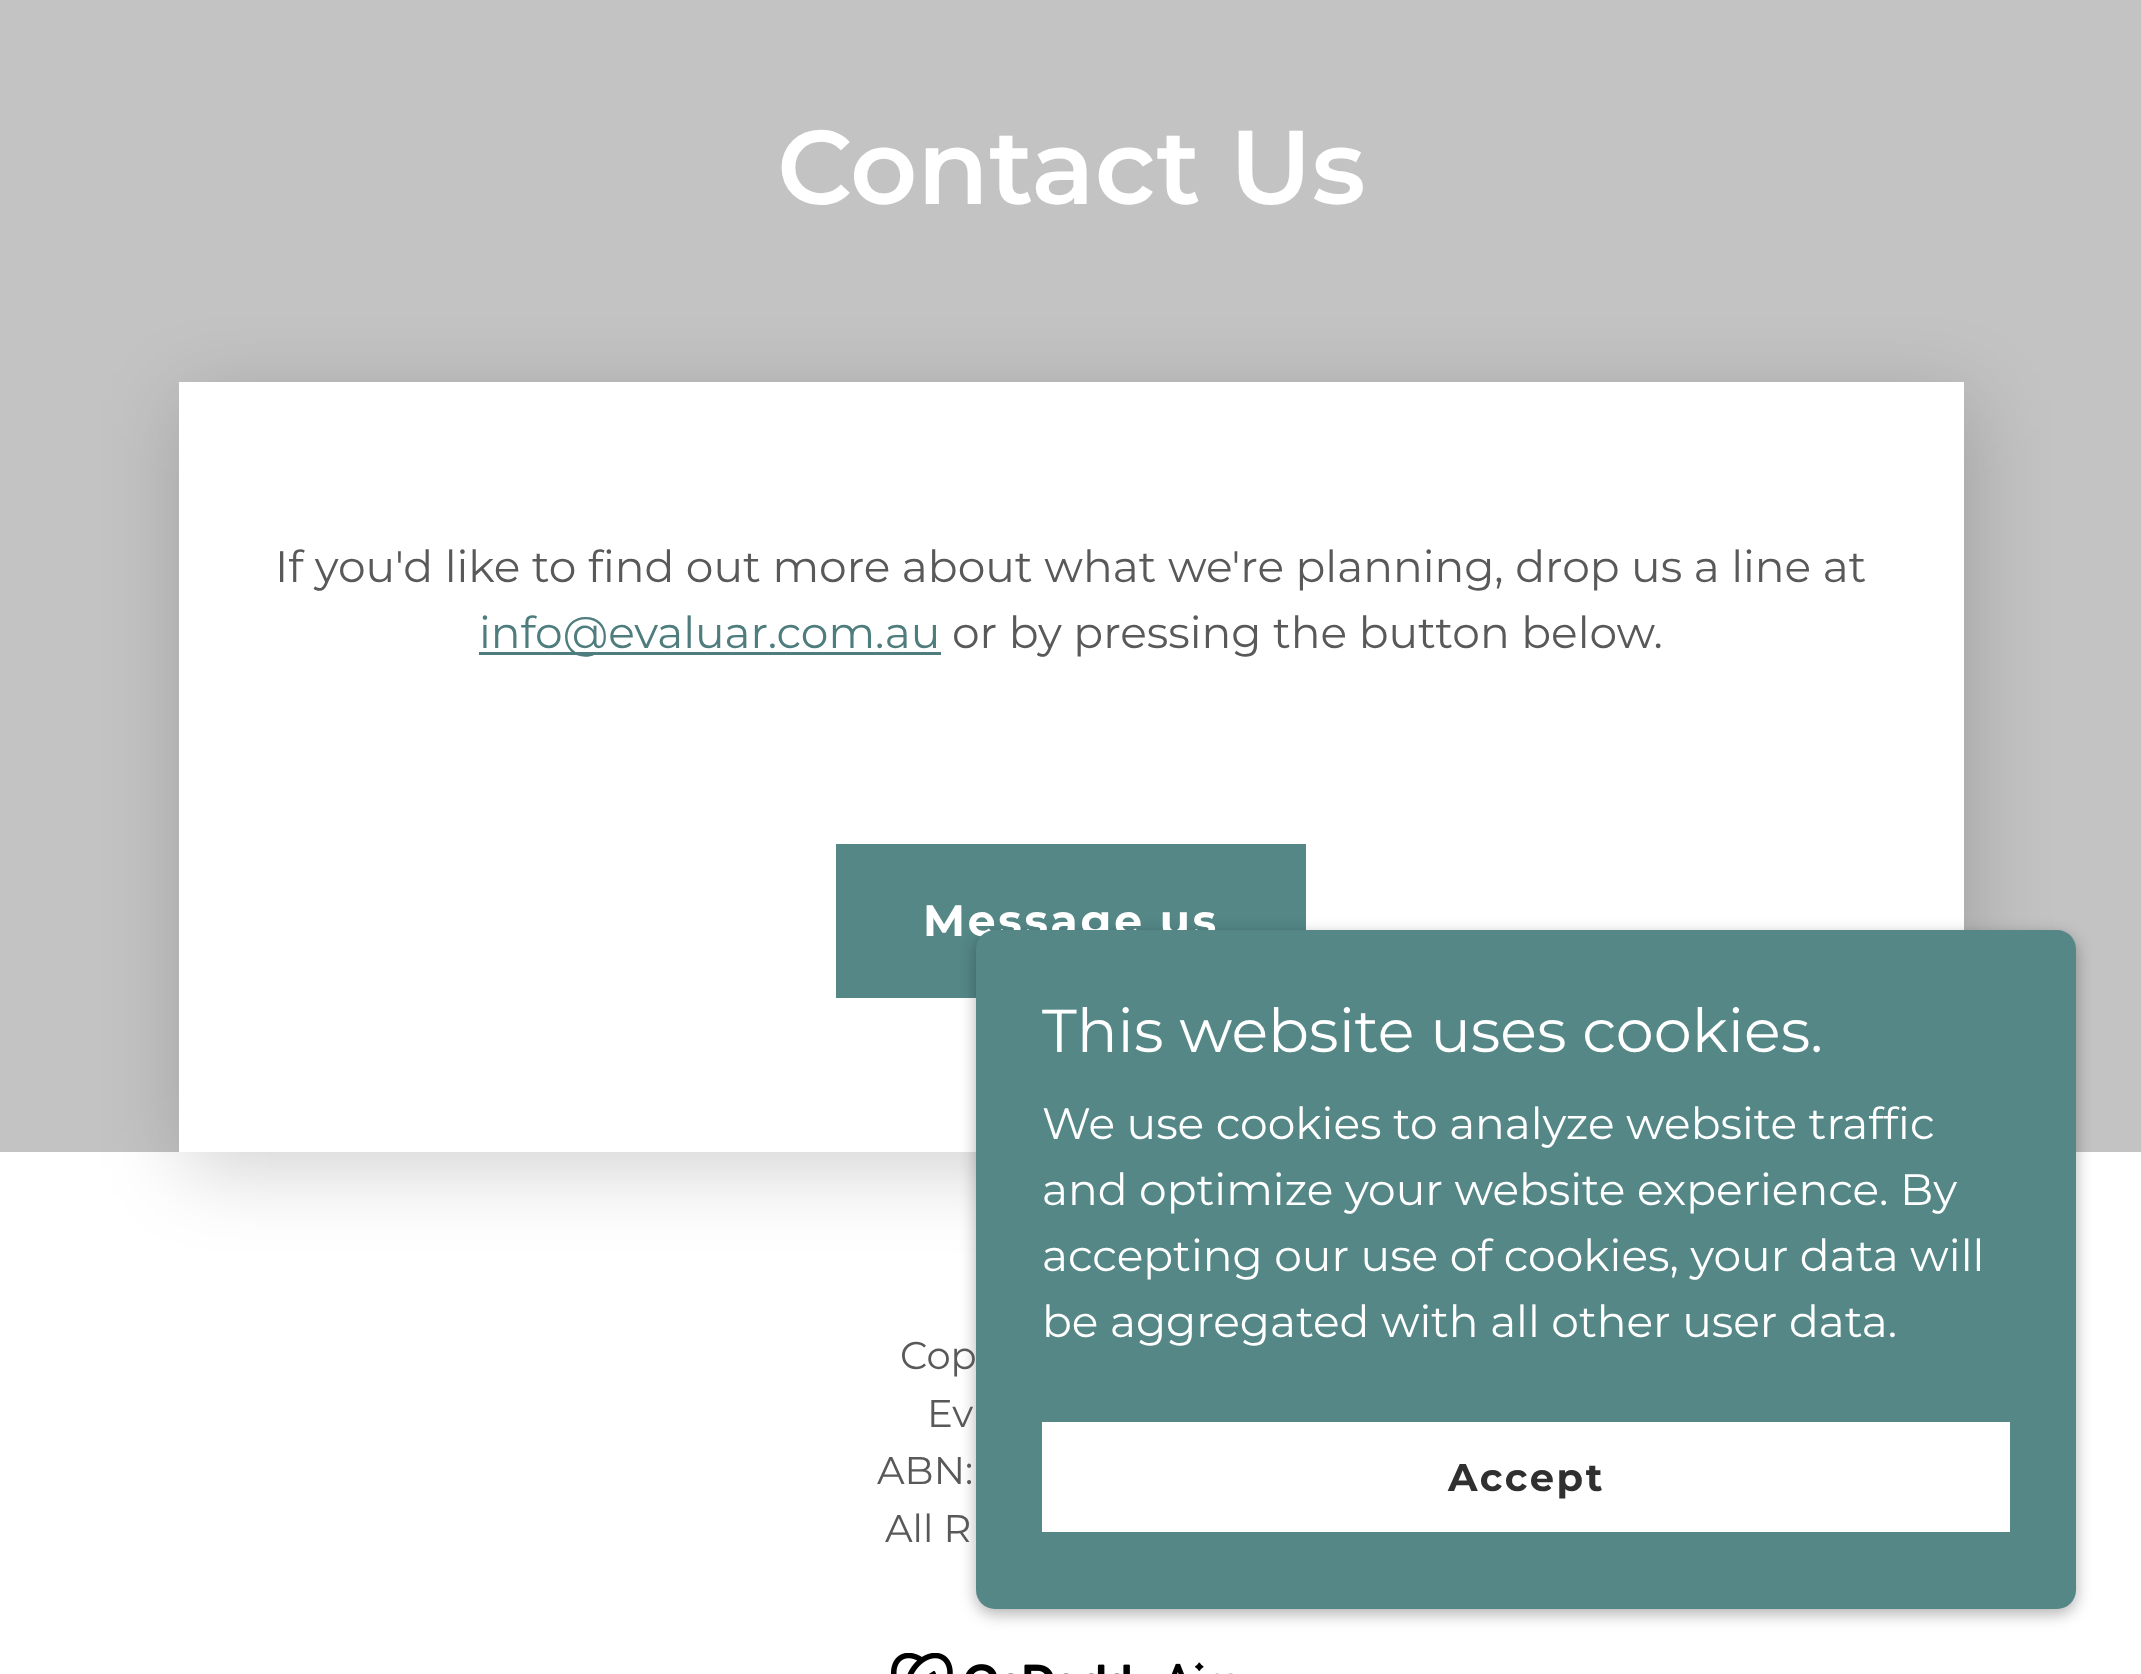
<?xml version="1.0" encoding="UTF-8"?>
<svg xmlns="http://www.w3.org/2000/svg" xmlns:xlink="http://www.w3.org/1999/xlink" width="2141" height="1674">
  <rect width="100%" height="100%" fill="#ffffff" />
  <rect width="2141" height="1152" fill="#c3c3c3" />
  <rect x="184" y="399" width="1785" height="770" fill="#000000" fill-opacity="0.18" filter="blur(41px)" />
  <rect x="179" y="382" width="1785" height="770" fill="#ffffff" />
  <rect x="479" y="652" width="462" height="3" fill="#4f7d7d" />
  <rect x="836" y="844" width="470" height="154" fill="#558787" />
  <image x="891" y="1653" width="342" height="21" xlink:href="image1.png" />
  <rect x="976" y="935" width="1100" height="679" rx="19" fill="#000000" fill-opacity="0.3" filter="blur(8px)" />
  <text x="777" y="204" style="font-family: Montserrat; font-size: 104.5px; font-weight: 600; fill: #ffffff">Contact Us</text>
  <text x="275" y="582" style="font-family: Montserrat; font-size: 44px; fill: #595959">If you'd like to find out more about what we're planning, drop us a line at</text>
  <text x="479" y="648" style="font-family: Montserrat; font-size: 44px; fill: #4f7d7d">info@evaluar.com.au</text>
  <text x="952" y="648" style="font-family: Montserrat; font-size: 44px; fill: #595959">or by pressing the button below.</text>
  <text x="923" y="936" style="font-family: Montserrat; font-size: 44px; font-weight: bold; letter-spacing: 2.75px; fill: #ffffff">Message us</text>
  <text x="900" y="1369" style="font-family: Montserrat; font-size: 38.5px; fill: #595959">Cop</text>
  <text x="927" y="1427" style="font-family: Montserrat; font-size: 38.5px; fill: #595959">Ev</text>
  <text x="877" y="1484" style="font-family: Montserrat; font-size: 38.5px; fill: #595959">ABN:</text>
  <text x="885" y="1542" style="font-family: Montserrat; font-size: 38.5px; fill: #595959">All R</text>
  <rect x="976" y="930" width="1100" height="679" rx="19" fill="#558787" />
  <text x="1042" y="1052" style="font-family: Montserrat; font-size: 60.5px; fill: #ffffff">This website uses cookies.</text>
  <text x="1042" y="1139" style="font-family: Montserrat; font-size: 44px; fill: #ffffff">We use cookies to analyze website traffic</text>
  <text x="1042" y="1205" style="font-family: Montserrat; font-size: 44px; fill: #ffffff">and optimize your website experience. By</text>
  <text x="1042" y="1271" style="font-family: Montserrat; font-size: 44px; fill: #ffffff">accepting our use of cookies, your data will</text>
  <text x="1042" y="1337" style="font-family: Montserrat; font-size: 44px; fill: #ffffff">be aggregated with all other user data.</text>
  <rect x="1042" y="1422" width="968" height="110" fill="#ffffff" />
  <text x="1448" y="1491" style="font-family: Montserrat; font-size: 38.5px; font-weight: bold; letter-spacing: 2.5px; fill: #303030">Accept</text>
</svg>
